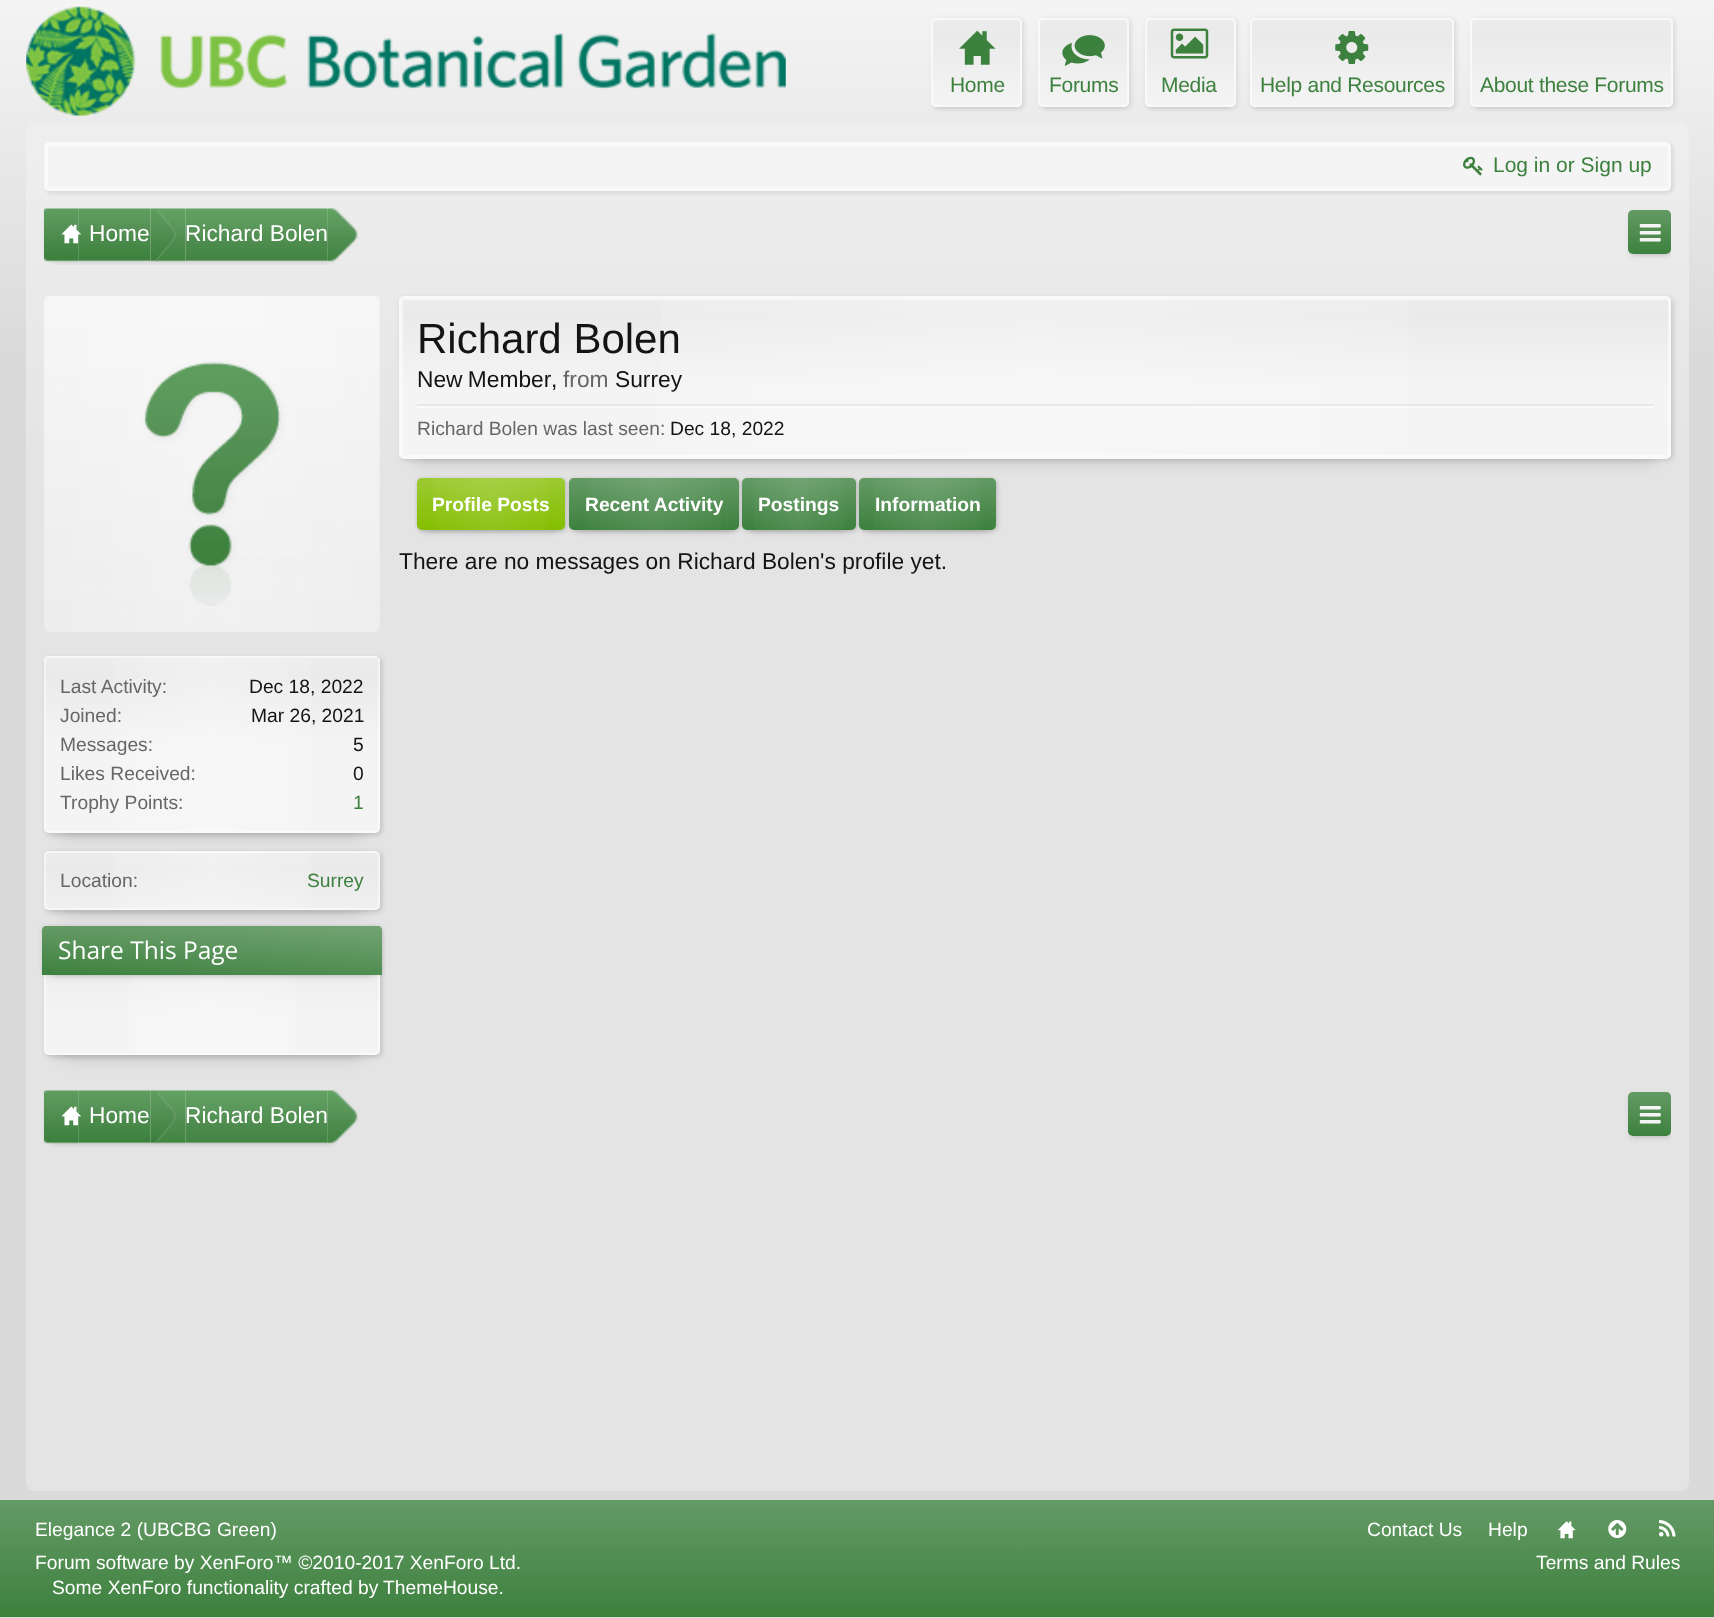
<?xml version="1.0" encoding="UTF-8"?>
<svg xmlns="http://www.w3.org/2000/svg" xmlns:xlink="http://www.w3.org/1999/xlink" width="1714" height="1618">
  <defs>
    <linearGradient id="g1" gradientUnits="userSpaceOnUse" x1="857" y1="0" x2="858" y2="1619"><stop offset="0" stop-color="#f4f4f4" /><stop offset="0.22" stop-color="#dadada" /></linearGradient>
    <linearGradient id="g2" gradientUnits="userSpaceOnUse" x1="977" y1="17" x2="977" y2="107"><stop offset="0" stop-color="#ececec" /><stop offset="0.2" stop-color="#eaeaea" /><stop offset="0.98" stop-color="#f4f4f4" /></linearGradient>
    <linearGradient id="g3" gradientUnits="userSpaceOnUse" x1="1083" y1="17" x2="1083" y2="107"><stop offset="0" stop-color="#ececec" /><stop offset="0.2" stop-color="#eaeaea" /><stop offset="0.98" stop-color="#f4f4f4" /></linearGradient>
    <linearGradient id="g4" gradientUnits="userSpaceOnUse" x1="1190" y1="17" x2="1190" y2="107"><stop offset="0" stop-color="#ececec" /><stop offset="0.2" stop-color="#eaeaea" /><stop offset="0.98" stop-color="#f4f4f4" /></linearGradient>
    <linearGradient id="g5" gradientUnits="userSpaceOnUse" x1="1352" y1="17" x2="1352" y2="107"><stop offset="0" stop-color="#ececec" /><stop offset="0.2" stop-color="#eaeaea" /><stop offset="0.98" stop-color="#f4f4f4" /></linearGradient>
    <linearGradient id="g6" gradientUnits="userSpaceOnUse" x1="1572" y1="17" x2="1572" y2="107"><stop offset="0" stop-color="#ececec" /><stop offset="0.2" stop-color="#eaeaea" /><stop offset="0.98" stop-color="#f4f4f4" /></linearGradient>
    <linearGradient id="g7" gradientUnits="userSpaceOnUse" x1="857" y1="124" x2="858" y2="1491"><stop offset="0" stop-color="#ffffff" stop-opacity="0.4" /><stop offset="0.26" stop-color="#ffffff" stop-opacity="0" /></linearGradient>
    <clipPath id="clip1"><rect x="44" y="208" width="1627" height="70" /></clipPath>
    <linearGradient id="g8" gradientUnits="userSpaceOnUse" x1="1649" y1="210" x2="1649" y2="254"><stop offset="0" stop-color="#ffffff" stop-opacity="0.2" /><stop offset="1" stop-color="#ffffff" stop-opacity="0" /></linearGradient>
    <clipPath id="clip2"><rect x="399" y="296" width="1272" height="163" rx="5" /></clipPath>
    <linearGradient id="g9" gradientUnits="userSpaceOnUse" x1="1035" y1="297" x2="1035" y2="457"><stop offset="0" stop-color="#ececec" /><stop offset="0.11" stop-color="#eaeaea" /><stop offset="0.55" stop-color="#f4f4f4" /></linearGradient>
    <linearGradient id="g10" gradientUnits="userSpaceOnUse" x1="401" y1="377" x2="1670" y2="377"><stop offset="0" stop-color="#ffffff" stop-opacity="0" /><stop offset="0.5" stop-color="#ffffff" stop-opacity="0.3" /><stop offset="1" stop-color="#ffffff" stop-opacity="0" /></linearGradient>
    <linearGradient id="g11" gradientUnits="userSpaceOnUse" x1="417" y1="504" x2="565" y2="504"><stop offset="0" stop-color="#ffffff" stop-opacity="0" /><stop offset="0.5" stop-color="#ffffff" stop-opacity="0.1" /><stop offset="1" stop-color="#ffffff" stop-opacity="0" /></linearGradient>
    <linearGradient id="g12" gradientUnits="userSpaceOnUse" x1="491" y1="478" x2="491" y2="530"><stop offset="0" stop-color="#ffffff" stop-opacity="0.2" /><stop offset="1" stop-color="#ffffff" stop-opacity="0" /></linearGradient>
    <linearGradient id="g13" gradientUnits="userSpaceOnUse" x1="569" y1="504" x2="739" y2="504"><stop offset="0" stop-color="#ffffff" stop-opacity="0" /><stop offset="0.5" stop-color="#ffffff" stop-opacity="0.1" /><stop offset="1" stop-color="#ffffff" stop-opacity="0" /></linearGradient>
    <linearGradient id="g14" gradientUnits="userSpaceOnUse" x1="654" y1="478" x2="654" y2="530"><stop offset="0" stop-color="#ffffff" stop-opacity="0.2" /><stop offset="1" stop-color="#ffffff" stop-opacity="0" /></linearGradient>
    <linearGradient id="g15" gradientUnits="userSpaceOnUse" x1="742" y1="504" x2="856" y2="504"><stop offset="0" stop-color="#ffffff" stop-opacity="0" /><stop offset="0.5" stop-color="#ffffff" stop-opacity="0.1" /><stop offset="1" stop-color="#ffffff" stop-opacity="0" /></linearGradient>
    <linearGradient id="g16" gradientUnits="userSpaceOnUse" x1="799" y1="478" x2="799" y2="530"><stop offset="0" stop-color="#ffffff" stop-opacity="0.2" /><stop offset="1" stop-color="#ffffff" stop-opacity="0" /></linearGradient>
    <linearGradient id="g17" gradientUnits="userSpaceOnUse" x1="859" y1="504" x2="996" y2="504"><stop offset="0" stop-color="#ffffff" stop-opacity="0" /><stop offset="0.5" stop-color="#ffffff" stop-opacity="0.1" /><stop offset="1" stop-color="#ffffff" stop-opacity="0" /></linearGradient>
    <linearGradient id="g18" gradientUnits="userSpaceOnUse" x1="928" y1="478" x2="928" y2="530"><stop offset="0" stop-color="#ffffff" stop-opacity="0.2" /><stop offset="1" stop-color="#ffffff" stop-opacity="0" /></linearGradient>
    <linearGradient id="g19" gradientUnits="userSpaceOnUse" x1="212" y1="656" x2="212" y2="833"><stop offset="0" stop-color="#ececec" /><stop offset="0.1" stop-color="#eaeaea" /><stop offset="0.5" stop-color="#f4f4f4" /></linearGradient>
    <linearGradient id="g20" gradientUnits="userSpaceOnUse" x1="44" y1="745" x2="380" y2="745"><stop offset="0" stop-color="#ffffff" stop-opacity="0" /><stop offset="0.5" stop-color="#ffffff" stop-opacity="0.3" /><stop offset="1" stop-color="#ffffff" stop-opacity="0" /></linearGradient>
    <linearGradient id="g21" gradientUnits="userSpaceOnUse" x1="212" y1="928" x2="212" y2="1055"><stop offset="0" stop-color="#ececec" /><stop offset="0.14" stop-color="#eaeaea" /><stop offset="0.68" stop-color="#f4f4f4" /></linearGradient>
    <linearGradient id="g22" gradientUnits="userSpaceOnUse" x1="44" y1="991" x2="380" y2="991"><stop offset="0" stop-color="#ffffff" stop-opacity="0" /><stop offset="0.5" stop-color="#ffffff" stop-opacity="0.3" /><stop offset="1" stop-color="#ffffff" stop-opacity="0" /></linearGradient>
    <linearGradient id="g23" gradientUnits="userSpaceOnUse" x1="42" y1="950" x2="382" y2="950"><stop offset="0" stop-color="#ffffff" stop-opacity="0" /><stop offset="1" stop-color="#ffffff" stop-opacity="0.1" /></linearGradient>
    <linearGradient id="g24" gradientUnits="userSpaceOnUse" x1="212" y1="926" x2="212" y2="975"><stop offset="0" stop-color="#ffffff" stop-opacity="0.2" /><stop offset="1" stop-color="#ffffff" stop-opacity="0" /></linearGradient>
    <linearGradient id="g25" gradientUnits="userSpaceOnUse" x1="212" y1="851" x2="212" y2="938"><stop offset="0" stop-color="#ececec" /><stop offset="0.2" stop-color="#eaeaea" /><stop offset="1" stop-color="#f4f4f4" /></linearGradient>
    <linearGradient id="g26" gradientUnits="userSpaceOnUse" x1="44" y1="880" x2="380" y2="880"><stop offset="0" stop-color="#ffffff" stop-opacity="0" /><stop offset="0.5" stop-color="#ffffff" stop-opacity="0.3" /><stop offset="1" stop-color="#ffffff" stop-opacity="0" /></linearGradient>
    <clipPath id="clip3"><rect x="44" y="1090" width="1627" height="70" /></clipPath>
    <linearGradient id="g27" gradientUnits="userSpaceOnUse" x1="1649" y1="1092" x2="1649" y2="1136"><stop offset="0" stop-color="#ffffff" stop-opacity="0.2" /><stop offset="1" stop-color="#ffffff" stop-opacity="0" /></linearGradient>
    <linearGradient id="g28" gradientUnits="userSpaceOnUse" x1="858" y1="1500" x2="858" y2="1617"><stop offset="0" stop-color="#649a65" /><stop offset="1" stop-color="#3d813e" /></linearGradient>
  </defs>
  <rect width="100%" height="100%" fill="#ffffff" />
  <rect width="1714" height="1618" fill="url(#g1)" />
  <image x="26" y="6" width="760" height="110" xlink:href="image1.png" />
  <rect x="936" y="28" width="81" height="79" fill="#000000" fill-opacity="0.1" filter="blur(2.5px)" />
  <rect x="933" y="19" width="91" height="90" rx="5" fill="#000000" fill-opacity="0.1" filter="blur(2.5px)" />
  <rect x="931" y="18" width="91" height="89" rx="5" fill="url(#g2)" />
  <rect x="932" y="19" width="89" height="87" rx="4" fill="none" stroke="#ffffff" stroke-opacity="0.3" stroke-width="2" />
  <rect x="932" y="19" width="89" height="87" rx="4" fill="none" stroke="#f9f9f9" stroke-width="2" />
  <image x="959" y="30" width="37" height="35" xlink:href="image2.png" />
  <rect x="1043" y="28" width="81" height="79" fill="#000000" fill-opacity="0.1" filter="blur(2.5px)" />
  <rect x="1040" y="19" width="91" height="90" rx="5" fill="#000000" fill-opacity="0.1" filter="blur(2.5px)" />
  <rect x="1038" y="18" width="91" height="89" rx="5" fill="url(#g3)" />
  <rect x="1039" y="19" width="89" height="87" rx="4" fill="none" stroke="#ffffff" stroke-opacity="0.3" stroke-width="2" />
  <rect x="1039" y="19" width="89" height="87" rx="4" fill="none" stroke="#f9f9f9" stroke-width="2" />
  <image x="1062" y="35" width="43" height="31" xlink:href="image3.png" />
  <rect x="1150" y="28" width="80" height="79" fill="#000000" fill-opacity="0.1" filter="blur(2.5px)" />
  <rect x="1146" y="19" width="91" height="90" rx="5" fill="#000000" fill-opacity="0.1" filter="blur(2.5px)" />
  <rect x="1145" y="18" width="91" height="89" rx="5" fill="url(#g4)" />
  <rect x="1146" y="19" width="89" height="87" rx="4" fill="none" stroke="#ffffff" stroke-opacity="0.3" stroke-width="2" />
  <rect x="1146" y="19" width="89" height="87" rx="4" fill="none" stroke="#f9f9f9" stroke-width="2" />
  <image x="1170" y="28" width="39" height="31" xlink:href="image4.png" />
  <rect x="1255" y="28" width="194" height="79" fill="#000000" fill-opacity="0.1" filter="blur(2.5px)" />
  <rect x="1251" y="19" width="205" height="90" rx="5" fill="#000000" fill-opacity="0.1" filter="blur(2.5px)" />
  <rect x="1250" y="18" width="204" height="89" rx="5" fill="url(#g5)" />
  <rect x="1251" y="19" width="202" height="87" rx="4" fill="none" stroke="#ffffff" stroke-opacity="0.3" stroke-width="2" />
  <rect x="1251" y="19" width="202" height="87" rx="4" fill="none" stroke="#f9f9f9" stroke-width="2" />
  <image x="1335" y="31" width="34" height="33" xlink:href="image5.png" />
  <rect x="1475" y="28" width="193" height="79" fill="#000000" fill-opacity="0.1" filter="blur(2.5px)" />
  <rect x="1472" y="19" width="203" height="90" rx="5" fill="#000000" fill-opacity="0.1" filter="blur(2.5px)" />
  <rect x="1470" y="18" width="203" height="89" rx="5" fill="url(#g6)" />
  <rect x="1471" y="19" width="201" height="87" rx="4" fill="none" stroke="#ffffff" stroke-opacity="0.3" stroke-width="2" />
  <rect x="1471" y="19" width="201" height="87" rx="4" fill="none" stroke="#f9f9f9" stroke-width="2" />
  <rect x="26" y="124" width="1663" height="1367" rx="9" fill="#e4e4e4" />
  <rect x="26" y="124" width="1663" height="1367" rx="9" fill="url(#g7)" />
  <rect x="46" y="144" width="1627" height="49" rx="5" fill="#000000" fill-opacity="0.1" filter="blur(2px)" />
  <rect x="44" y="142" width="1627" height="49" rx="5" fill="#f4f4f4" />
  <rect x="47" y="145" width="1622" height="43" rx="3" fill="none" stroke="#fafafa" stroke-width="2" />
  <rect x="45" y="143" width="1625" height="47" rx="4" fill="none" stroke="#f9f9f9" stroke-width="2" />
  <image x="1463" y="156" width="20" height="20" xlink:href="image6.png" />
  <image x="78" y="208" width="73" height="57" xlink:href="image7.png" />
  <image x="43" y="208" width="36" height="57" xlink:href="image8.png" />
  <image x="61" y="224" width="21" height="20" xlink:href="image9.png" />
  <image x="150" y="208" width="26" height="54" xlink:href="image10.png" />
  <image x="185" y="208" width="143" height="57" xlink:href="image11.png" />
  <image x="150" y="208" width="36" height="57" xlink:href="image12.png" />
  <image x="327" y="208" width="31" height="57" xlink:href="image13.png" />
  <rect x="1633" y="221" width="33" height="33" fill="#000000" fill-opacity="0.1" filter="blur(2.5px)" />
  <g clip-path="url(#clip1)">
    <rect x="1629" y="212" width="44" height="44" rx="5" fill="#000000" fill-opacity="0.1" filter="blur(2.5px)" />
  </g>
  <rect x="1628" y="210" width="43" height="44" rx="5" fill="#3d813e" />
  <rect x="1628" y="210" width="43" height="44" rx="5" fill="url(#g8)" />
  <image x="1639" y="224" width="22" height="18" xlink:href="image14.png" />
  <rect x="417" y="331" width="1237" height="128" fill="#000000" fill-opacity="0.2" filter="blur(9px)" />
  <rect x="401" y="298" width="1272" height="162" rx="5" fill="#000000" fill-opacity="0.15" filter="blur(2.5px)" />
  <g clip-path="url(#clip2)">
    <rect x="399" y="298" width="1272" height="159" fill="url(#g9)" />
  </g>
  <rect x="662" y="298" width="747" height="159" fill="url(#g10)" />
  <rect x="402" y="299" width="1267" height="157" rx="3" fill="none" stroke="#ffffff" stroke-opacity="0.5" stroke-width="2" />
  <rect x="400" y="297" width="1270" height="161" rx="4" fill="none" stroke="#f9f9f9" stroke-width="2" />
  <rect x="417" y="404" width="1237" height="2" fill="#e8e8e8" />
  <rect x="417" y="406" width="1237" height="2" fill="#fafafa" />
  <rect x="425" y="495" width="132" height="35" fill="#000000" fill-opacity="0.2" filter="blur(4.5px)" />
  <rect x="417" y="478" width="148" height="52" rx="5" fill="#000000" fill-opacity="0.1" filter="blur(2px)" />
  <rect x="418" y="480" width="149" height="52" rx="5" fill="#000000" fill-opacity="0.1" filter="blur(2px)" />
  <rect x="417" y="478" width="148" height="52" rx="5" fill="#84be00" />
  <rect x="433" y="478" width="116" height="52" fill="url(#g11)" />
  <rect x="417" y="478" width="148" height="52" rx="5" fill="url(#g12)" />
  <rect x="578" y="495" width="152" height="35" fill="#000000" fill-opacity="0.2" filter="blur(4.5px)" />
  <rect x="569" y="478" width="170" height="52" rx="5" fill="#000000" fill-opacity="0.1" filter="blur(2px)" />
  <rect x="571" y="480" width="169" height="52" rx="5" fill="#000000" fill-opacity="0.1" filter="blur(2px)" />
  <rect x="569" y="478" width="170" height="52" rx="5" fill="#3d813e" />
  <rect x="587" y="478" width="134" height="52" fill="url(#g13)" />
  <rect x="569" y="478" width="170" height="52" rx="5" fill="url(#g14)" />
  <rect x="751" y="495" width="96" height="35" fill="#000000" fill-opacity="0.2" filter="blur(4.5px)" />
  <rect x="742" y="478" width="114" height="52" rx="5" fill="#000000" fill-opacity="0.1" filter="blur(2px)" />
  <rect x="744" y="480" width="114" height="52" rx="5" fill="#000000" fill-opacity="0.1" filter="blur(2px)" />
  <rect x="742" y="478" width="114" height="52" rx="5" fill="#3d813e" />
  <rect x="754" y="478" width="90" height="52" fill="url(#g15)" />
  <rect x="742" y="478" width="114" height="52" rx="5" fill="url(#g16)" />
  <rect x="868" y="495" width="119" height="35" fill="#000000" fill-opacity="0.2" filter="blur(4.5px)" />
  <rect x="859" y="478" width="137" height="52" rx="5" fill="#000000" fill-opacity="0.1" filter="blur(2px)" />
  <rect x="861" y="480" width="137" height="52" rx="5" fill="#000000" fill-opacity="0.1" filter="blur(2px)" />
  <rect x="859" y="478" width="137" height="52" rx="5" fill="#3d813e" />
  <rect x="874" y="478" width="107" height="52" fill="url(#g17)" />
  <rect x="859" y="478" width="137" height="52" rx="5" fill="url(#g18)" />
  <image x="44" y="296" width="336" height="336" xlink:href="image15.png" />
  <rect x="61" y="691" width="301" height="142" fill="#000000" fill-opacity="0.2" filter="blur(9px)" />
  <rect x="46" y="658" width="336" height="177" rx="5" fill="#000000" fill-opacity="0.15" filter="blur(2.5px)" />
  <rect x="44" y="656" width="336" height="177" rx="5" fill="url(#g19)" />
  <rect x="113" y="656" width="198" height="177" fill="url(#g20)" />
  <rect x="45" y="657" width="334" height="175" rx="4" fill="none" stroke="#ffffff" stroke-opacity="0.5" stroke-width="2" />
  <rect x="61" y="963" width="301" height="92" fill="#000000" fill-opacity="0.2" filter="blur(9px)" />
  <rect x="46" y="929" width="336" height="128" rx="5" fill="#000000" fill-opacity="0.15" filter="blur(2.5px)" />
  <rect x="44" y="928" width="336" height="127" rx="5" fill="url(#g21)" />
  <rect x="129" y="975" width="166" height="80" fill="url(#g22)" />
  <rect x="45" y="929" width="334" height="125" rx="4" fill="none" stroke="#ffffff" stroke-opacity="0.5" stroke-width="2" />
  <rect x="51" y="943" width="322" height="32" fill="#000000" fill-opacity="0.2" filter="blur(4.5px)" />
  <rect x="42" y="926" width="340" height="49" rx="4" fill="#000000" fill-opacity="0.1" filter="blur(2px)" />
  <path d="M 46 926 h 332 c 2 0 4 2 4 4 v 45 h -340 v -45 c 0 -2 2 -4 4 -4 z" fill="#3d813e" />
  <path d="M 46 926 h 332 c 2 0 4 2 4 4 v 45 h -340 v -45 c 0 -2 2 -4 4 -4 z" fill="url(#g23)" />
  <path d="M 46 926 h 332 c 2 0 4 2 4 4 v 45 h -340 v -45 c 0 -2 2 -4 4 -4 z" fill="url(#g24)" />
  <rect x="61" y="886" width="301" height="24" fill="#000000" fill-opacity="0.2" filter="blur(9px)" />
  <rect x="46" y="852" width="336" height="60" rx="5" fill="#000000" fill-opacity="0.15" filter="blur(2.5px)" />
  <rect x="44" y="851" width="336" height="59" rx="5" fill="url(#g25)" />
  <rect x="113" y="851" width="198" height="59" fill="url(#g26)" />
  <rect x="45" y="852" width="334" height="57" rx="4" fill="none" stroke="#ffffff" stroke-opacity="0.5" stroke-width="2" />
  <image x="78" y="1090" width="73" height="57" xlink:href="image16.png" />
  <image x="43" y="1090" width="36" height="57" xlink:href="image17.png" />
  <image x="61" y="1106" width="21" height="20" xlink:href="image18.png" />
  <image x="150" y="1090" width="26" height="54" xlink:href="image19.png" />
  <image x="185" y="1090" width="143" height="57" xlink:href="image20.png" />
  <image x="150" y="1090" width="36" height="57" xlink:href="image21.png" />
  <image x="327" y="1090" width="31" height="57" xlink:href="image22.png" />
  <rect x="1633" y="1103" width="33" height="33" fill="#000000" fill-opacity="0.1" filter="blur(2.5px)" />
  <g clip-path="url(#clip3)">
    <rect x="1629" y="1094" width="44" height="44" rx="5" fill="#000000" fill-opacity="0.1" filter="blur(2.5px)" />
  </g>
  <rect x="1628" y="1092" width="43" height="44" rx="5" fill="#3d813e" />
  <rect x="1628" y="1092" width="43" height="44" rx="5" fill="url(#g27)" />
  <image x="1639" y="1106" width="22" height="18" xlink:href="image14.png" />
  <rect y="1500" width="1714" height="117" fill="url(#g28)" />
  <image x="1557" y="1521" width="19" height="18" xlink:href="image23.png" />
  <image x="1608" y="1520" width="19" height="18" xlink:href="image24.png" />
  <image x="1659" y="1520" width="17" height="17" xlink:href="image25.png" />
  <text x="950" y="92" style="font-family: Liberation Sans; font-size: 21px; letter-spacing: -0.3px; fill: #3d813e">Home</text>
  <text x="1049" y="92" style="font-family: Liberation Sans; font-size: 21px; letter-spacing: -0.3px; fill: #3d813e">Forums</text>
  <text x="1161" y="92" style="font-family: Liberation Sans; font-size: 21px; letter-spacing: -0.3px; fill: #3d813e">Media</text>
  <text x="1260" y="92" style="font-family: Liberation Sans; font-size: 21px; letter-spacing: -0.3px; fill: #3d813e">Help and Resources</text>
  <text x="1480" y="92" style="font-family: Liberation Sans; font-size: 21px; letter-spacing: -0.3px; fill: #3d813e">About these Forums</text>
  <text x="1493" y="172" style="font-family: Liberation Sans; font-size: 21px; fill: #3d813e">Log in or Sign up</text>
  <text x="89" y="241" style="font-family: Liberation Sans; font-size: 22.75px; fill: #ffffff">Home</text>
  <text x="185" y="241" style="font-family: Liberation Sans; font-size: 22.75px; fill: #ffffff">Richard Bolen</text>
  <text x="417" y="353" style="font-family: Liberation Sans; font-size: 42px; fill: #141414">Richard Bolen</text>
  <text x="417" y="387" word-spacing="-1" style="font-family: Liberation Sans; font-size: 22.75px; fill: #141414">New Member</text>
  <text x="551" y="387" style="font-family: Liberation Sans; font-size: 22.75px; fill: #141414">,</text>
  <text x="563" y="387" style="font-family: Liberation Sans; font-size: 22.75px; fill: #666666">from</text>
  <text x="615" y="387" style="font-family: Liberation Sans; font-size: 22.75px; fill: #141414">Surrey</text>
  <text x="417" y="435" style="font-family: Liberation Sans; font-size: 19.25px; fill: #666666">Richard Bolen was last seen:</text>
  <text x="670" y="435" style="font-family: Liberation Sans; font-size: 19.25px; fill: #141414">Dec 18, 2022</text>
  <text x="432" y="511" style="font-family: Liberation Sans; font-size: 19.25px; font-weight: bold; fill: #ffffff">Profile Posts</text>
  <text x="585" y="511" style="font-family: Liberation Sans; font-size: 19.25px; font-weight: bold; fill: #ffffff">Recent Activity</text>
  <text x="758" y="511" style="font-family: Liberation Sans; font-size: 19.25px; font-weight: bold; fill: #ffffff">Postings</text>
  <text x="875" y="511" style="font-family: Liberation Sans; font-size: 19.25px; font-weight: bold; fill: #ffffff">Information</text>
  <text x="399" y="569" style="font-family: Liberation Sans; font-size: 22.75px; fill: #141414">There are no messages on Richard Bolen's profile yet.</text>
  <text x="60" y="693" style="font-family: Liberation Sans; font-size: 19.25px; fill: #666666">Last Activity:</text>
  <text x="249" y="693" style="font-family: Liberation Sans; font-size: 19.25px; fill: #141414">Dec 18, 2022</text>
  <text x="60" y="722" style="font-family: Liberation Sans; font-size: 19.25px; fill: #666666">Joined:</text>
  <text x="251" y="722" style="font-family: Liberation Sans; font-size: 19.25px; fill: #141414">Mar 26, 2021</text>
  <text x="60" y="751" style="font-family: Liberation Sans; font-size: 19.25px; fill: #666666">Messages:</text>
  <text x="353" y="751" style="font-family: Liberation Sans; font-size: 19.25px; fill: #141414">5</text>
  <text x="60" y="780" style="font-family: Liberation Sans; font-size: 19.25px; fill: #666666">Likes Received:</text>
  <text x="353" y="780" style="font-family: Liberation Sans; font-size: 19.25px; fill: #141414">0</text>
  <text x="60" y="809" style="font-family: Liberation Sans; font-size: 19.25px; fill: #666666">Trophy Points:</text>
  <text x="353" y="809" style="font-family: Liberation Sans; font-size: 19.25px; fill: #3d813e">1</text>
  <text x="60" y="887" style="font-family: Liberation Sans; font-size: 19.25px; fill: #666666">Location:</text>
  <text x="307" y="887" style="font-family: Liberation Sans; font-size: 19.25px; fill: #3d813e">Surrey</text>
  <text x="58" y="959" style="font-family: Open Sans; font-size: 24.5px; fill: #ffffff">Share This Page</text>
  <text x="89" y="1123" style="font-family: Liberation Sans; font-size: 22.75px; fill: #ffffff">Home</text>
  <text x="185" y="1123" style="font-family: Liberation Sans; font-size: 22.75px; fill: #ffffff">Richard Bolen</text>
  <text x="35" y="1536" style="font-family: Liberation Sans; font-size: 19.25px; fill: #ffffff">Elegance 2 (UBCBG Green)</text>
  <text x="1367" y="1536" style="font-family: Liberation Sans; font-size: 19.25px; fill: #ffffff">Contact Us</text>
  <text x="1488" y="1536" style="font-family: Liberation Sans; font-size: 19.25px; fill: #ffffff">Help</text>
  <text x="35" y="1569" style="font-family: Liberation Sans; font-size: 19.25px; fill: #ffffff">Forum software by XenForo™ ©2010-2017 XenForo Ltd.</text>
  <text x="52" y="1594" style="font-family: Liberation Sans; font-size: 19.25px; fill: #ffffff">Some XenForo functionality crafted by</text>
  <text x="383" y="1594" style="font-family: Liberation Sans; font-size: 19.25px; fill: #ffffff">ThemeHouse.</text>
  <text x="1536" y="1569" style="font-family: Liberation Sans; font-size: 19.25px; fill: #ffffff">Terms and Rules</text>
</svg>
